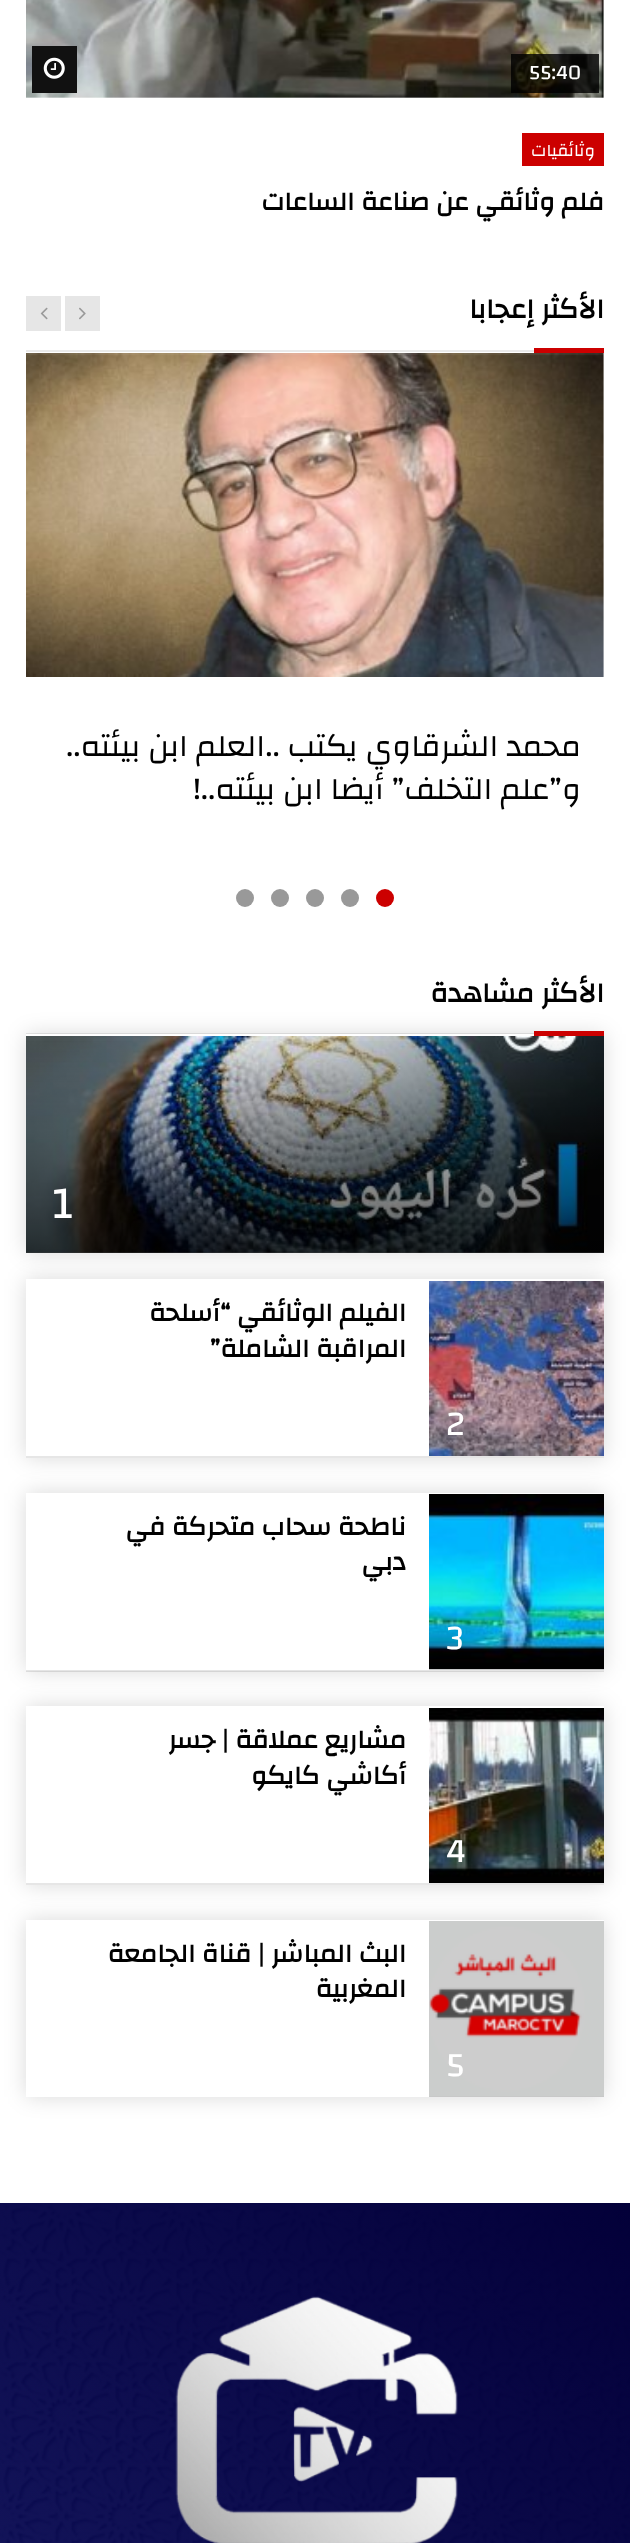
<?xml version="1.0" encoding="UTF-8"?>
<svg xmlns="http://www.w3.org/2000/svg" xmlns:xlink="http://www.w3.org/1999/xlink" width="630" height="2543">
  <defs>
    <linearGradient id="g1" gradientUnits="userSpaceOnUse" x1="315" y1="1034" x2="315" y2="1253"><stop offset="0" stop-color="#000000" stop-opacity="0" /><stop offset="1" stop-color="#000000" stop-opacity="0.66" /></linearGradient>
  </defs>
  <rect width="100%" height="100%" fill="#ffffff" />
  <image x="26" y="0" width="578" height="98" xlink:href="image1.png" />
  <rect x="511" y="54" width="88" height="39" fill="#000000" fill-opacity="0.8" />
  <rect x="32" y="46" width="45" height="47" fill="#111111" />
  <image x="43" y="57" width="22" height="22" xlink:href="image2.png" />
  <rect x="522" y="133" width="82" height="33" fill="#cc0000" />
  <rect x="65" y="296" width="35" height="35" fill="#e6e6e6" />
  <image x="79" y="307" width="7" height="13" xlink:href="image3.png" />
  <rect x="26" y="296" width="35" height="35" fill="#e6e6e6" />
  <image x="40" y="307" width="8" height="13" xlink:href="image4.png" />
  <rect x="534" y="348" width="70" height="5" fill="#cc0000" />
  <rect x="26" y="350" width="508" height="2" fill="#eaeaea" />
  <image x="26" y="353" width="578" height="324" xlink:href="image5.png" />
  <circle cx="385" cy="898" r="9" fill="#cc0000" />
  <circle cx="350" cy="898" r="9" fill="#999999" />
  <circle cx="315" cy="898" r="9" fill="#999999" />
  <circle cx="280" cy="898" r="9" fill="#999999" />
  <circle cx="245" cy="898" r="9" fill="#999999" />
  <rect x="26" y="1033" width="508" height="1" fill="#eaeaea" />
  <rect x="26" y="1034" width="578" height="219" fill="#000000" fill-opacity="0.15" filter="blur(10.5px)" />
  <rect x="534" y="1031" width="70" height="5" fill="#cc0000" />
  <rect x="26" y="1034" width="508" height="2" fill="#ffffff" />
  <rect x="26" y="1252" width="578" height="1" fill="#c8c8c8" />
  <image x="26" y="1036" width="578" height="217" xlink:href="image6.png" />
  <rect x="26" y="1041" width="578" height="212" fill="url(#g1)" />
  <rect x="26" y="1279" width="578" height="179" fill="#000000" fill-opacity="0.15" filter="blur(10.5px)" />
  <rect x="26" y="1279" width="578" height="177" fill="#ffffff" />
  <rect x="26" y="1456" width="578" height="2" fill="#e6e6e6" />
  <image x="429" y="1281" width="175" height="175" xlink:href="image7.png" />
  <rect x="26" y="1493" width="578" height="178" fill="#000000" fill-opacity="0.15" filter="blur(10.5px)" />
  <rect x="26" y="1493" width="578" height="178" fill="#ffffff" />
  <rect x="26" y="1670" width="578" height="2" fill="#000000" fill-opacity="0.1" />
  <rect x="429" y="1669" width="175" height="1" fill="#c8c8c8" />
  <image x="429" y="1494" width="175" height="175" xlink:href="image8.png" />
  <rect x="26" y="1706" width="578" height="179" fill="#000000" fill-opacity="0.15" filter="blur(10.5px)" />
  <rect x="26" y="1706" width="578" height="177" fill="#ffffff" />
  <rect x="26" y="1883" width="578" height="2" fill="#e6e6e6" />
  <image x="429" y="1708" width="175" height="175" xlink:href="image9.png" />
  <rect x="26" y="1920" width="578" height="177" fill="#000000" fill-opacity="0.15" filter="blur(10.5px)" />
  <rect x="26" y="1920" width="578" height="177" fill="#ffffff" />
  <rect x="429" y="2096" width="175" height="1" fill="#c8c8c8" />
  <image x="429" y="1921" width="175" height="175" xlink:href="image10.png" />
  <image x="0" y="2203" width="630" height="340" xlink:href="image11.png" />
  <image x="175" y="2296" width="283" height="247" xlink:href="image12.png" />
  <text x="529" y="79" style="font-family: Changa; font-size: 21px; fill: #ffffff">55:40</text>
  <text x="595" y="156" style="font-family: Changa; font-size: 17.5px; direction: rtl; fill: #ffffff">وثائقيات</text>
  <text x="604" y="210" style="font-family: Changa; font-size: 26.25px; font-weight: bold; direction: rtl; fill: #000000">فلم وثائقي عن صناعة الساعات</text>
  <text x="604" y="318" style="font-family: Changa; font-size: 28px; font-weight: bold; direction: rtl; fill: #000000">الأكثر إعجابا</text>
  <text x="581" y="756" style="font-family: Changa; font-size: 31.5px; direction: rtl; fill: #000000">محمد الشرقاوي يكتب ..العلم ابن بيئته..</text>
  <text x="581" y="799" style="font-family: Changa; font-size: 31.5px; direction: rtl; fill: #000000">و”علم التخلف” أيضا ابن بيئته..!</text>
  <text x="604" y="1002" style="font-family: Changa; font-size: 28px; font-weight: bold; direction: rtl; fill: #000000">الأكثر مشاهدة</text>
  <text x="53" y="1218" style="font-family: Changa; font-size: 46px; fill: #ffffff">1</text>
  <text x="406" y="1321" style="font-family: Changa; font-size: 26.25px; font-weight: bold; direction: rtl; fill: #000000">الفيلم الوثائقي “أسلحة</text>
  <text x="406" y="1357" style="font-family: Changa; font-size: 26.25px; font-weight: bold; direction: rtl; fill: #000000">المراقبة الشاملة”</text>
  <text x="446" y="1435" style="font-family: Changa; font-size: 35px; fill: #ffffff">2</text>
  <text x="406" y="1535" style="font-family: Changa; font-size: 26.25px; font-weight: bold; direction: rtl; fill: #000000">ناطحة سحاب متحركة في</text>
  <text x="406" y="1570" style="font-family: Changa; font-size: 26.25px; font-weight: bold; direction: rtl; fill: #000000">دبي</text>
  <text x="446" y="1649" style="font-family: Changa; font-size: 35px; fill: #ffffff">3</text>
  <text x="406" y="1748" style="font-family: Changa; font-size: 26.25px; font-weight: bold; direction: rtl; fill: #000000">مشاريع عملاقة | جسر</text>
  <text x="406" y="1784" style="font-family: Changa; font-size: 26.25px; font-weight: bold; direction: rtl; fill: #000000">أكاشي كايكو</text>
  <text x="446" y="1862" style="font-family: Changa; font-size: 35px; fill: #ffffff">4</text>
  <text x="406" y="1962" style="font-family: Changa; font-size: 26.25px; font-weight: bold; direction: rtl; fill: #000000">البث المباشر | قناة الجامعة</text>
  <text x="406" y="1997" style="font-family: Changa; font-size: 26.25px; font-weight: bold; direction: rtl; fill: #000000">المغربية</text>
  <text x="446" y="2076" style="font-family: Changa; font-size: 35px; fill: #ffffff">5</text>
</svg>
